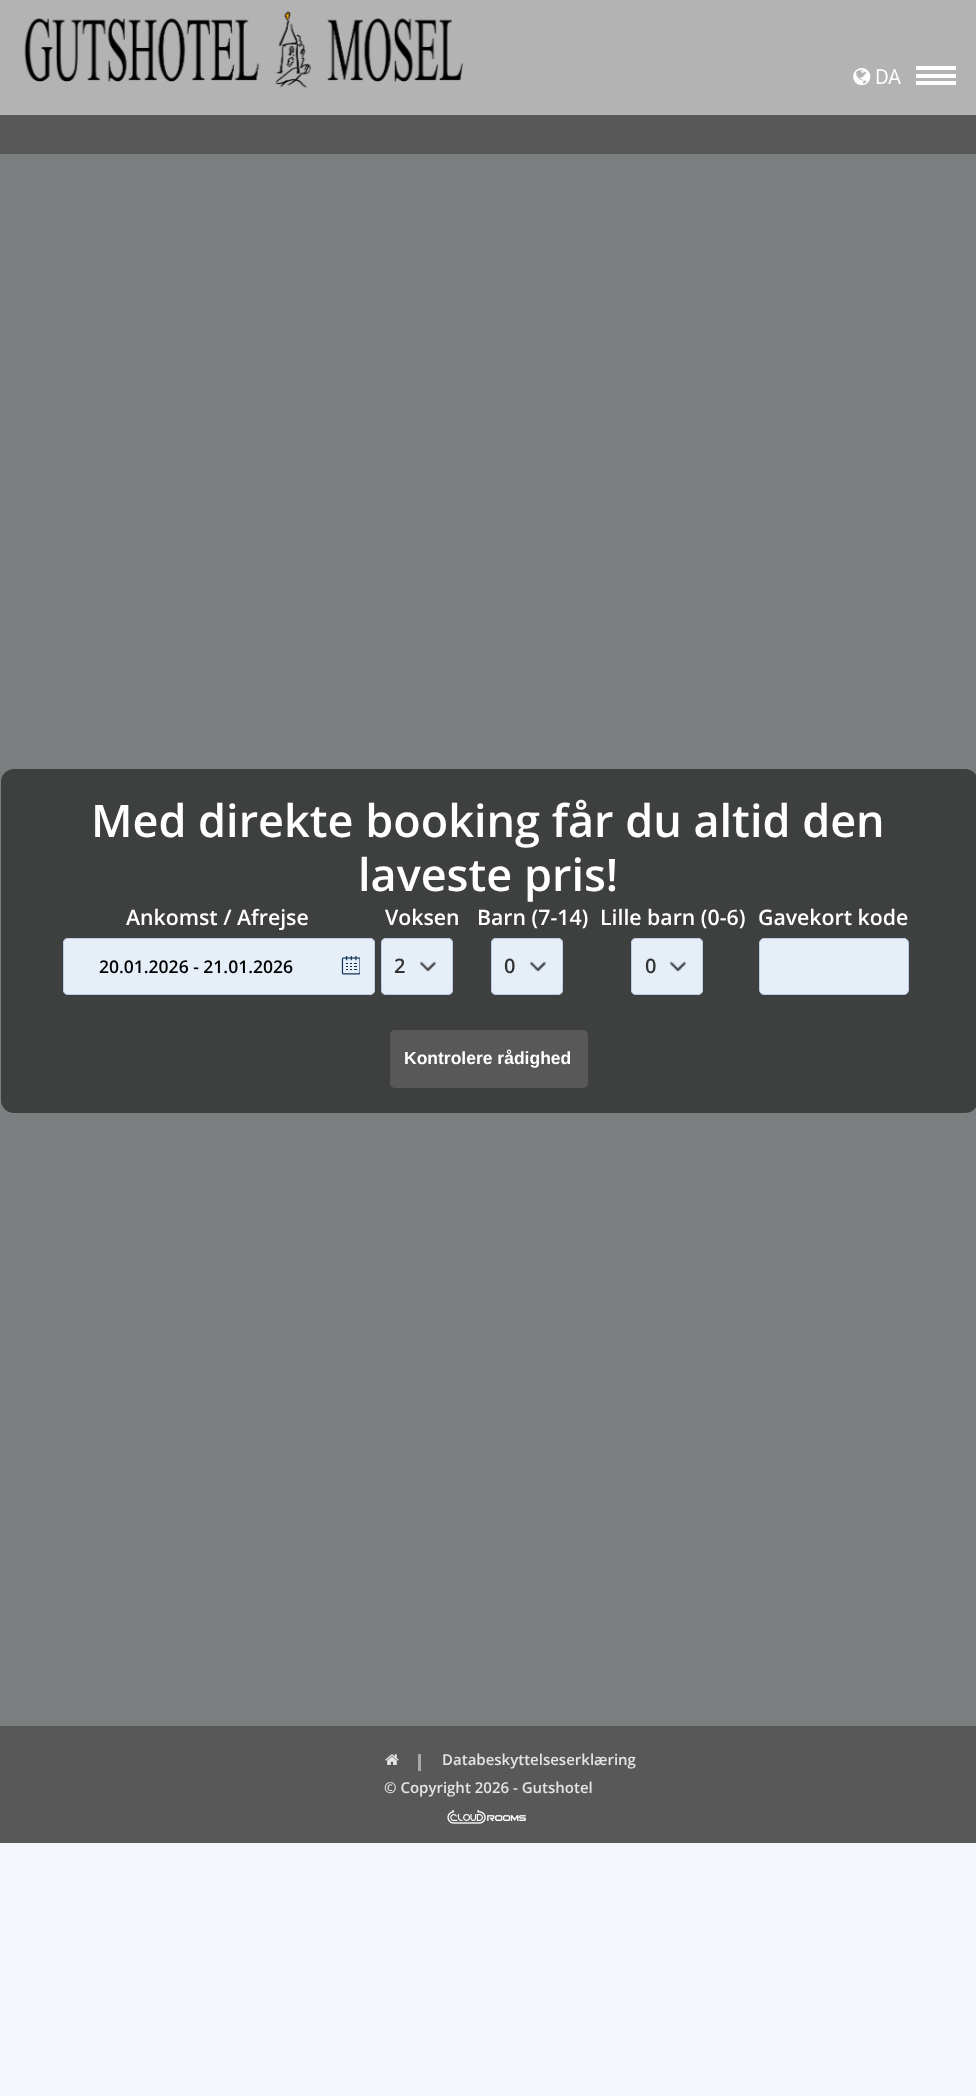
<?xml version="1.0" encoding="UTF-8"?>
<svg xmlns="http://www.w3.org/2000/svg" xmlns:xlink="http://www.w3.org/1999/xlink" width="976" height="2096">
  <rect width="100%" height="100%" fill="#f4f8fc" />
  <rect width="976" height="115" fill="#b3b3b3" />
  <image x="24" y="11" width="439" height="77" xlink:href="image1.png" />
  <image x="853" y="68" width="18" height="18" xlink:href="image2.png" />
  <rect x="916" y="66" width="40" height="4" fill="#ffffff" />
  <rect x="916" y="74" width="40" height="4" fill="#ffffff" />
  <rect x="916" y="81" width="40" height="4" fill="#ffffff" />
  <rect y="115" width="976" height="39" fill="#585858" />
  <rect y="154" width="976" height="1572" fill="#7b7f80" />
  <rect x="1" y="769" width="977" height="344" rx="13" fill="#3e4040" />
  <rect x="63" y="938" width="312" height="57" rx="5" fill="#e6eef8" />
  <image x="341" y="956" width="19" height="19" xlink:href="image3.png" />
  <rect x="63.5" y="938.5" width="311" height="56" rx="4.5" fill="none" stroke="#bdcbe7" />
  <rect x="381" y="938" width="72" height="57" rx="5" fill="#e6eef8" />
  <image x="419" y="961" width="17" height="11" xlink:href="image4.png" />
  <rect x="381.5" y="938.5" width="71" height="56" rx="4.5" fill="none" stroke="#bdcbe7" />
  <rect x="491" y="938" width="72" height="57" rx="5" fill="#e6eef8" />
  <image x="529" y="961" width="17" height="11" xlink:href="image5.png" />
  <rect x="491.5" y="938.5" width="71" height="56" rx="4.5" fill="none" stroke="#bdcbe7" />
  <rect x="631" y="938" width="72" height="57" rx="5" fill="#e6eef8" />
  <image x="669" y="961" width="17" height="11" xlink:href="image5.png" />
  <rect x="631.5" y="938.5" width="71" height="56" rx="4.5" fill="none" stroke="#bdcbe7" />
  <rect x="759.5" y="938.5" width="149" height="56" rx="4.5" fill="#e6eef8" stroke="#bdcbe7" />
  <rect x="390" y="1030" width="198" height="58" rx="5" fill="#585858" />
  <rect y="1726" width="976" height="117" fill="#585858" />
  <image x="385" y="1754" width="14" height="11" xlink:href="image6.png" />
  <rect x="418" y="1754" width="3" height="17" fill="#a8a8a8" />
  <image x="447" y="1810" width="79" height="14" xlink:href="image7.png" />
  <text x="875" y="84" style="font-family: Roboto; font-size: 20px; font-weight: bold; fill: #ffffff">DA</text>
  <text x="91" y="837" style="font-family: Open Sans; font-size: 45px; font-weight: 600; fill: #ffffff">Med direkte booking får du altid den</text>
  <text x="358" y="891" style="font-family: Open Sans; font-size: 45px; font-weight: 600; fill: #ffffff">laveste pris!</text>
  <text x="126" y="925" style="font-family: Open Sans; font-size: 21.25px; font-weight: 600; fill: #ffffff">Ankomst / Afrejse</text>
  <text x="99" y="973" style="font-family: Open Sans; font-size: 17.5px; font-weight: 600; fill: #000000">20.01.2026 - 21.01.2026</text>
  <text x="385" y="925" style="font-family: Open Sans; font-size: 21.25px; font-weight: 600; fill: #ffffff">Voksen</text>
  <text x="394" y="973" style="font-family: Open Sans; font-size: 20px; font-weight: 600; fill: #333333">2</text>
  <text x="477" y="925" style="font-family: Open Sans; font-size: 21.25px; font-weight: 600; fill: #ffffff">Barn (7-14)</text>
  <text x="504" y="973" style="font-family: Open Sans; font-size: 20px; font-weight: 600; fill: #333333">0</text>
  <text x="600" y="925" style="font-family: Open Sans; font-size: 21.25px; font-weight: 600; fill: #ffffff">Lille barn (0-6)</text>
  <text x="645" y="973" style="font-family: Open Sans; font-size: 20px; font-weight: 600; fill: #333333">0</text>
  <text x="758" y="925" style="font-family: Open Sans; font-size: 21.25px; font-weight: 600; fill: #ffffff">Gavekort kode</text>
  <text x="404" y="1064" style="font-family: Liberation Sans; font-size: 17.5px; font-weight: bold; fill: #ffffff">Kontrolere rådighed</text>
  <text x="442" y="1765" style="font-family: Open Sans; font-size: 15px; font-weight: 600; fill: #e4e4e4">Databeskyttelseserklæring</text>
  <text x="384" y="1793" style="font-family: Open Sans; font-size: 15px; font-weight: 600; fill: #e4e4e4">© Copyright 2026 - Gutshotel</text>
</svg>
